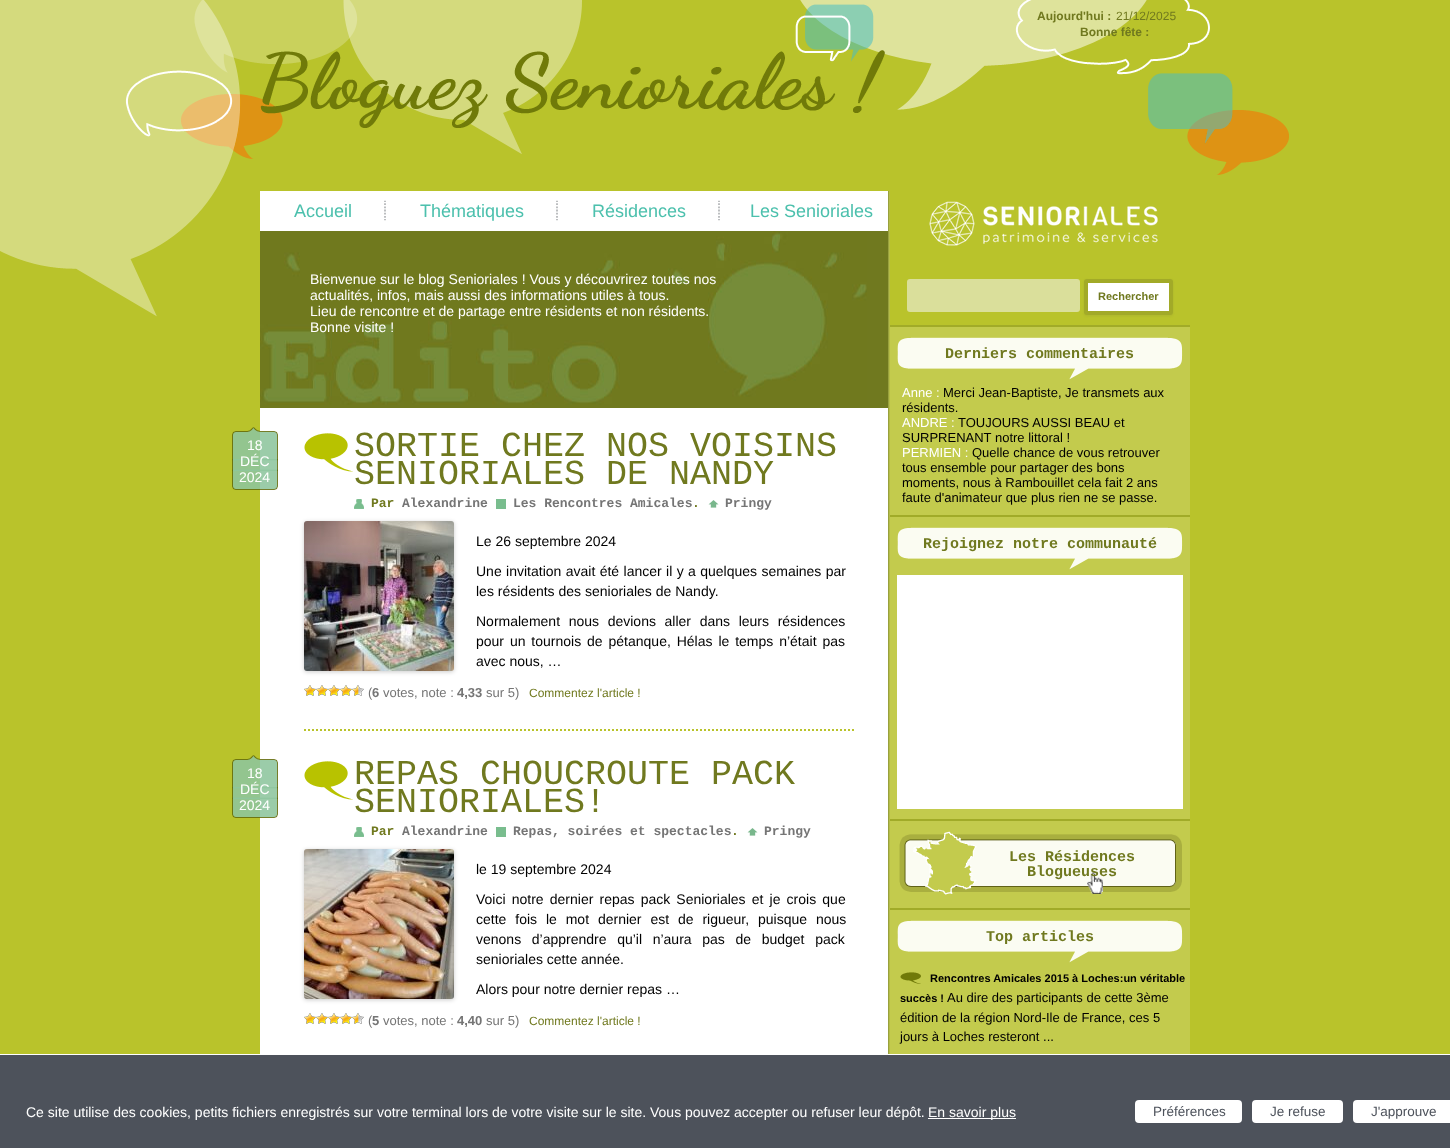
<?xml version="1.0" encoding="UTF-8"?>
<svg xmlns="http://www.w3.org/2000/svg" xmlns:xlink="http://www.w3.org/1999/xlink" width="1450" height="1148">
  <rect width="100%" height="100%" fill="#b9c32b" />
  <image x="0" y="0" width="1289" height="317" xlink:href="image1.png" />
  <image x="260" y="50" width="625" height="78" xlink:href="image3.png" />
  <image x="795" y="0" width="415" height="75" xlink:href="image2.png" />
  <rect x="260" y="191" width="628" height="863" fill="#ffffff" />
  <image x="888" y="191" width="302" height="863" xlink:href="image4.png" />
  <image x="384" y="200" width="2" height="21" xlink:href="image5.png" />
  <image x="556" y="200" width="2" height="21" xlink:href="image5.png" />
  <image x="718" y="200" width="2" height="21" xlink:href="image5.png" />
  <rect x="260" y="231" width="628" height="177" fill="#70791f" />
  <image x="260" y="231" width="607" height="174" xlink:href="image6.png" />
  <path d="M 304 730 h 551" fill="none" stroke="#b9c32b" stroke-width="2" stroke-dasharray="2 2" />
  <image x="304" y="433" width="49" height="39" xlink:href="image7.png" />
  <image x="232" y="427" width="46" height="63" xlink:href="image8.png" />
  <image x="354" y="499" width="10" height="10" xlink:href="image9.png" />
  <rect x="496" y="499" width="10" height="10" fill="#79bd8e" />
  <image x="708" y="500" width="11" height="8" xlink:href="image10.png" />
  <rect x="304" y="522" width="150" height="150" rx="3" fill="#000000" fill-opacity="0.2" filter="blur(2px)" />
  <image x="304" y="521" width="150" height="150" xlink:href="image11.png" />
  <image x="304" y="685" width="12" height="11" xlink:href="image12.png" />
  <image x="316" y="685" width="12" height="11" xlink:href="image12.png" />
  <image x="328" y="685" width="12" height="11" xlink:href="image12.png" />
  <image x="340" y="685" width="12" height="11" xlink:href="image12.png" />
  <image x="352" y="685" width="12" height="11" xlink:href="image13.png" />
  <image x="304" y="761" width="49" height="39" xlink:href="image7.png" />
  <image x="232" y="755" width="46" height="63" xlink:href="image8.png" />
  <image x="354" y="827" width="10" height="10" xlink:href="image9.png" />
  <rect x="496" y="827" width="10" height="10" fill="#79bd8e" />
  <image x="747" y="828" width="11" height="8" xlink:href="image10.png" />
  <rect x="304" y="850" width="150" height="150" rx="3" fill="#000000" fill-opacity="0.2" filter="blur(2px)" />
  <image x="304" y="849" width="150" height="150" xlink:href="image14.png" />
  <image x="304" y="1013" width="12" height="11" xlink:href="image12.png" />
  <image x="316" y="1013" width="12" height="11" xlink:href="image12.png" />
  <image x="328" y="1013" width="12" height="11" xlink:href="image12.png" />
  <image x="340" y="1013" width="12" height="11" xlink:href="image12.png" />
  <image x="352" y="1013" width="12" height="11" xlink:href="image13.png" />
  <rect x="890" y="191" width="300" height="134" fill="#b9c32b" />
  <image x="929" y="201" width="229" height="45" xlink:href="image15.png" />
  <rect x="890" y="325" width="300" height="2" fill="#a1ab28" />
  <rect x="907" y="279" width="173" height="33" rx="3" fill="#dadf9b" />
  <rect x="1084" y="280" width="89" height="36" rx="3" fill="#404040" fill-opacity="0.1" filter="blur(1px)" />
  <rect x="1086" y="281" width="85" height="32" rx="1" fill="#ffffff" stroke="#a2aa28" stroke-width="4" />
  <rect x="890" y="515" width="300" height="2" fill="#a1ab28" />
  <image x="897" y="337" width="286" height="43" xlink:href="image16.png" />
  <rect x="890" y="819" width="300" height="2" fill="#a1ab28" />
  <image x="897" y="527" width="286" height="43" xlink:href="image16.png" />
  <rect x="897" y="575" width="286" height="234" fill="#ffffff" />
  <rect x="890" y="908" width="300" height="2" fill="#a1ab28" />
  <image x="899" y="831" width="283" height="64" xlink:href="image17.png" />
  <image x="897" y="920" width="286" height="43" xlink:href="image16.png" />
  <image x="900" y="972" width="21" height="12" xlink:href="image18.png" />
  <rect y="1054" width="1450" height="1" fill="#ffffff" />
  <rect y="1055" width="1450" height="93" fill="#4d525b" />
  <rect x="928" y="1118" width="88" height="1" fill="#ffffff" />
  <rect x="1135" y="1100" width="107" height="23" rx="4" fill="#ffffff" />
  <rect x="1252" y="1100" width="91" height="23" rx="4" fill="#ffffff" />
  <rect x="1353" y="1100" width="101" height="23" rx="4" fill="#ffffff" />
  <text x="1037" y="20" style="font-family: Liberation Sans; font-size: 12px; font-weight: bold; fill: #70791f">Aujourd'hui :</text>
  <text x="1116" y="20" style="font-family: Liberation Sans; font-size: 12px; fill: #70791f">21/12/2025</text>
  <text x="1080" y="36" style="font-family: Liberation Sans; font-size: 12px; font-weight: bold; fill: #70791f">Bonne fête :</text>
  <text x="294" y="217" style="font-family: Liberation Sans; font-size: 18px; fill: #4cc0ad">Accueil</text>
  <text x="420" y="217" style="font-family: Liberation Sans; font-size: 18px; fill: #4cc0ad">Thématiques</text>
  <text x="592" y="217" style="font-family: Liberation Sans; font-size: 18px; fill: #4cc0ad">Résidences</text>
  <text x="750" y="217" style="font-family: Liberation Sans; font-size: 18px; fill: #4cc0ad">Les Senioriales</text>
  <text x="310" y="284" style="font-family: Liberation Sans; font-size: 14px; fill: #ffffff">Bienvenue sur le blog Senioriales ! Vous y découvrirez toutes nos</text>
  <text x="310" y="300" style="font-family: Liberation Sans; font-size: 14px; fill: #ffffff">actualités, infos, mais aussi des informations utiles à tous.</text>
  <text x="310" y="316" style="font-family: Liberation Sans; font-size: 14px; fill: #ffffff">Lieu de rencontre et de partage entre résidents et non résidents.</text>
  <text x="310" y="332" style="font-family: Liberation Sans; font-size: 14px; fill: #ffffff">Bonne visite !</text>
  <text x="247" y="450" style="font-family: Liberation Sans; font-size: 14px; fill: #ffffff">18</text>
  <text x="240" y="466" style="font-family: Liberation Sans; font-size: 14px; fill: #ffffff">DÉC</text>
  <text x="239" y="482" style="font-family: Liberation Sans; font-size: 14px; fill: #ffffff">2024</text>
  <text x="354" y="456" style="font-family: Liberation Mono; font-size: 35px; fill: #70791f">SORTIE CHEZ NOS VOISINS</text>
  <text x="354" y="484" style="font-family: Liberation Mono; font-size: 35px; fill: #70791f">SENIORIALES DE NANDY</text>
  <text x="371" y="507" style="font-family: Liberation Mono; font-size: 13px; font-weight: bold; fill: #70791f">Par</text>
  <text x="402" y="507" style="font-family: Liberation Mono; font-size: 13px; font-weight: bold; fill: #757575">Alexandrine</text>
  <text x="513" y="507" style="font-family: Liberation Mono; font-size: 13px; font-weight: bold; fill: #757575">Les Rencontres Amicales</text>
  <text x="692" y="507" style="font-family: Liberation Mono; font-size: 13px; font-weight: bold; fill: #70791f">.</text>
  <text x="725" y="507" style="font-family: Liberation Mono; font-size: 13px; font-weight: bold; fill: #757575">Pringy</text>
  <text x="476" y="546" style="font-family: Liberation Sans; font-size: 14px; fill: #000000">Le 26 septembre 2024</text>
  <text x="476" y="576" word-spacing="0.5" style="font-family: Liberation Sans; font-size: 14px; fill: #000000">Une invitation avait été lancer il y a quelques semaines par</text>
  <text x="476" y="596" style="font-family: Liberation Sans; font-size: 14px; fill: #000000">les résidents des senioriales de Nandy.</text>
  <text x="476" y="626" word-spacing="4.75" style="font-family: Liberation Sans; font-size: 14px; fill: #000000">Normalement nous devions aller dans leurs résidences</text>
  <text x="476" y="646" word-spacing="2" style="font-family: Liberation Sans; font-size: 14px; fill: #000000">pour un tournois de pétanque, Hélas le temps n’était pas</text>
  <text x="476" y="666" style="font-family: Liberation Sans; font-size: 14px; fill: #000000">avec nous, …</text>
  <text x="368" y="697" style="font-family: Liberation Sans; font-size: 13px; fill: #757575">(</text>
  <text x="372" y="697" style="font-family: Liberation Sans; font-size: 13px; font-weight: bold; fill: #757575">6</text>
  <text x="383" y="697" style="font-family: Liberation Sans; font-size: 13px; fill: #757575">votes, note :</text>
  <text x="457" y="697" style="font-family: Liberation Sans; font-size: 13px; font-weight: bold; fill: #757575">4,33</text>
  <text x="486" y="697" style="font-family: Liberation Sans; font-size: 13px; fill: #757575">sur 5)</text>
  <text x="529" y="697" style="font-family: Liberation Sans; font-size: 12px; fill: #70791f">Commentez l'article !</text>
  <text x="247" y="778" style="font-family: Liberation Sans; font-size: 14px; fill: #ffffff">18</text>
  <text x="240" y="794" style="font-family: Liberation Sans; font-size: 14px; fill: #ffffff">DÉC</text>
  <text x="239" y="810" style="font-family: Liberation Sans; font-size: 14px; fill: #ffffff">2024</text>
  <text x="354" y="784" style="font-family: Liberation Mono; font-size: 35px; fill: #70791f">REPAS CHOUCROUTE PACK</text>
  <text x="354" y="812" style="font-family: Liberation Mono; font-size: 35px; fill: #70791f">SENIORIALES!</text>
  <text x="371" y="835" style="font-family: Liberation Mono; font-size: 13px; font-weight: bold; fill: #70791f">Par</text>
  <text x="402" y="835" style="font-family: Liberation Mono; font-size: 13px; font-weight: bold; fill: #757575">Alexandrine</text>
  <text x="513" y="835" style="font-family: Liberation Mono; font-size: 13px; font-weight: bold; fill: #757575">Repas, soirées et spectacles</text>
  <text x="731" y="835" style="font-family: Liberation Mono; font-size: 13px; font-weight: bold; fill: #70791f">.</text>
  <text x="764" y="835" style="font-family: Liberation Mono; font-size: 13px; font-weight: bold; fill: #757575">Pringy</text>
  <text x="476" y="874" style="font-family: Liberation Sans; font-size: 14px; fill: #000000">le 19 septembre 2024</text>
  <text x="476" y="904" word-spacing="2.25" style="font-family: Liberation Sans; font-size: 14px; fill: #000000">Voici notre dernier repas pack Senioriales et je crois que</text>
  <text x="476" y="924" word-spacing="5" style="font-family: Liberation Sans; font-size: 14px; fill: #000000">cette fois le mot dernier est de rigueur, puisque nous</text>
  <text x="476" y="944" word-spacing="6.75" style="font-family: Liberation Sans; font-size: 14px; fill: #000000">venons d’apprendre qu’il n’aura pas de budget pack</text>
  <text x="476" y="964" style="font-family: Liberation Sans; font-size: 14px; fill: #000000">senioriales cette année.</text>
  <text x="476" y="994" style="font-family: Liberation Sans; font-size: 14px; fill: #000000">Alors pour notre dernier repas …</text>
  <text x="368" y="1025" style="font-family: Liberation Sans; font-size: 13px; fill: #757575">(</text>
  <text x="372" y="1025" style="font-family: Liberation Sans; font-size: 13px; font-weight: bold; fill: #757575">5</text>
  <text x="383" y="1025" style="font-family: Liberation Sans; font-size: 13px; fill: #757575">votes, note :</text>
  <text x="457" y="1025" style="font-family: Liberation Sans; font-size: 13px; font-weight: bold; fill: #757575">4,40</text>
  <text x="486" y="1025" style="font-family: Liberation Sans; font-size: 13px; fill: #757575">sur 5)</text>
  <text x="529" y="1025" style="font-family: Liberation Sans; font-size: 12px; fill: #70791f">Commentez l'article !</text>
  <text x="1098" y="300" style="font-family: Liberation Sans; font-size: 11px; font-weight: bold; fill: #70791f">Rechercher</text>
  <text x="945" y="358" style="font-family: Liberation Mono; font-size: 15px; font-weight: bold; fill: #70791f">Derniers commentaires</text>
  <text x="902" y="397" style="font-family: Liberation Sans; font-size: 13px; fill: #ffffff">Anne :</text>
  <text x="943" y="397" style="font-family: Liberation Sans; font-size: 13px; fill: #000000">Merci Jean-Baptiste, Je transmets aux</text>
  <text x="902" y="412" style="font-family: Liberation Sans; font-size: 13px; fill: #000000">résidents.</text>
  <text x="902" y="427" style="font-family: Liberation Sans; font-size: 13px; fill: #ffffff">ANDRE :</text>
  <text x="958" y="427" style="font-family: Liberation Sans; font-size: 13px; fill: #000000">TOUJOURS AUSSI BEAU et</text>
  <text x="902" y="442" style="font-family: Liberation Sans; font-size: 13px; fill: #000000">SURPRENANT notre littoral !</text>
  <text x="902" y="457" style="font-family: Liberation Sans; font-size: 13px; fill: #ffffff">PERMIEN :</text>
  <text x="972" y="457" style="font-family: Liberation Sans; font-size: 13px; fill: #000000">Quelle chance de vous retrouver</text>
  <text x="902" y="472" style="font-family: Liberation Sans; font-size: 13px; fill: #000000">tous ensemble pour partager des bons</text>
  <text x="902" y="487" style="font-family: Liberation Sans; font-size: 13px; fill: #000000">moments, nous à Rambouillet cela fait 2 ans</text>
  <text x="902" y="502" style="font-family: Liberation Sans; font-size: 13px; fill: #000000">faute d'animateur que plus rien ne se passe.</text>
  <text x="923" y="548" style="font-family: Liberation Mono; font-size: 15px; font-weight: bold; fill: #70791f">Rejoignez notre communauté</text>
  <text x="1009" y="861" style="font-family: Liberation Mono; font-size: 15px; font-weight: bold; fill: #70791f">Les Résidences</text>
  <text x="1027" y="876" style="font-family: Liberation Mono; font-size: 15px; font-weight: bold; fill: #70791f">Blogueuses</text>
  <text x="986" y="941" style="font-family: Liberation Mono; font-size: 15px; font-weight: bold; fill: #70791f">Top articles</text>
  <text x="930" y="982" style="font-family: Liberation Sans; font-size: 11px; font-weight: bold; fill: #000000">Rencontres Amicales 2015 à Loches:un véritable</text>
  <text x="900" y="1002" style="font-family: Liberation Sans; font-size: 11px; font-weight: bold; fill: #000000">succès !</text>
  <text x="947" y="1002" style="font-family: Liberation Sans; font-size: 13px; fill: #000000">Au dire des participants de cette 3ème</text>
  <text x="900" y="1022" style="font-family: Liberation Sans; font-size: 13px; fill: #000000">édition de la région Nord-Ile de France, ces 5</text>
  <text x="900" y="1041" style="font-family: Liberation Sans; font-size: 13px; fill: #000000">jours à Loches resteront ...</text>
  <text x="26" y="1117" style="font-family: Liberation Sans; font-size: 14px; fill: #ffffff">Ce site utilise des cookies, petits fichiers enregistrés sur votre terminal lors de votre visite sur le site. Vous pouvez accepter ou refuser leur dépôt.</text>
  <text x="928" y="1117" style="font-family: Liberation Sans; font-size: 14px; fill: #ffffff">En savoir plus</text>
  <text x="1153" y="1116" style="font-family: Liberation Sans; font-size: 13.5px; fill: #4d525b">Préférences</text>
  <text x="1270" y="1116" style="font-family: Liberation Sans; font-size: 13.5px; fill: #4d525b">Je refuse</text>
  <text x="1371" y="1116" style="font-family: Liberation Sans; font-size: 13.5px; fill: #4d525b">J'approuve</text>
</svg>
